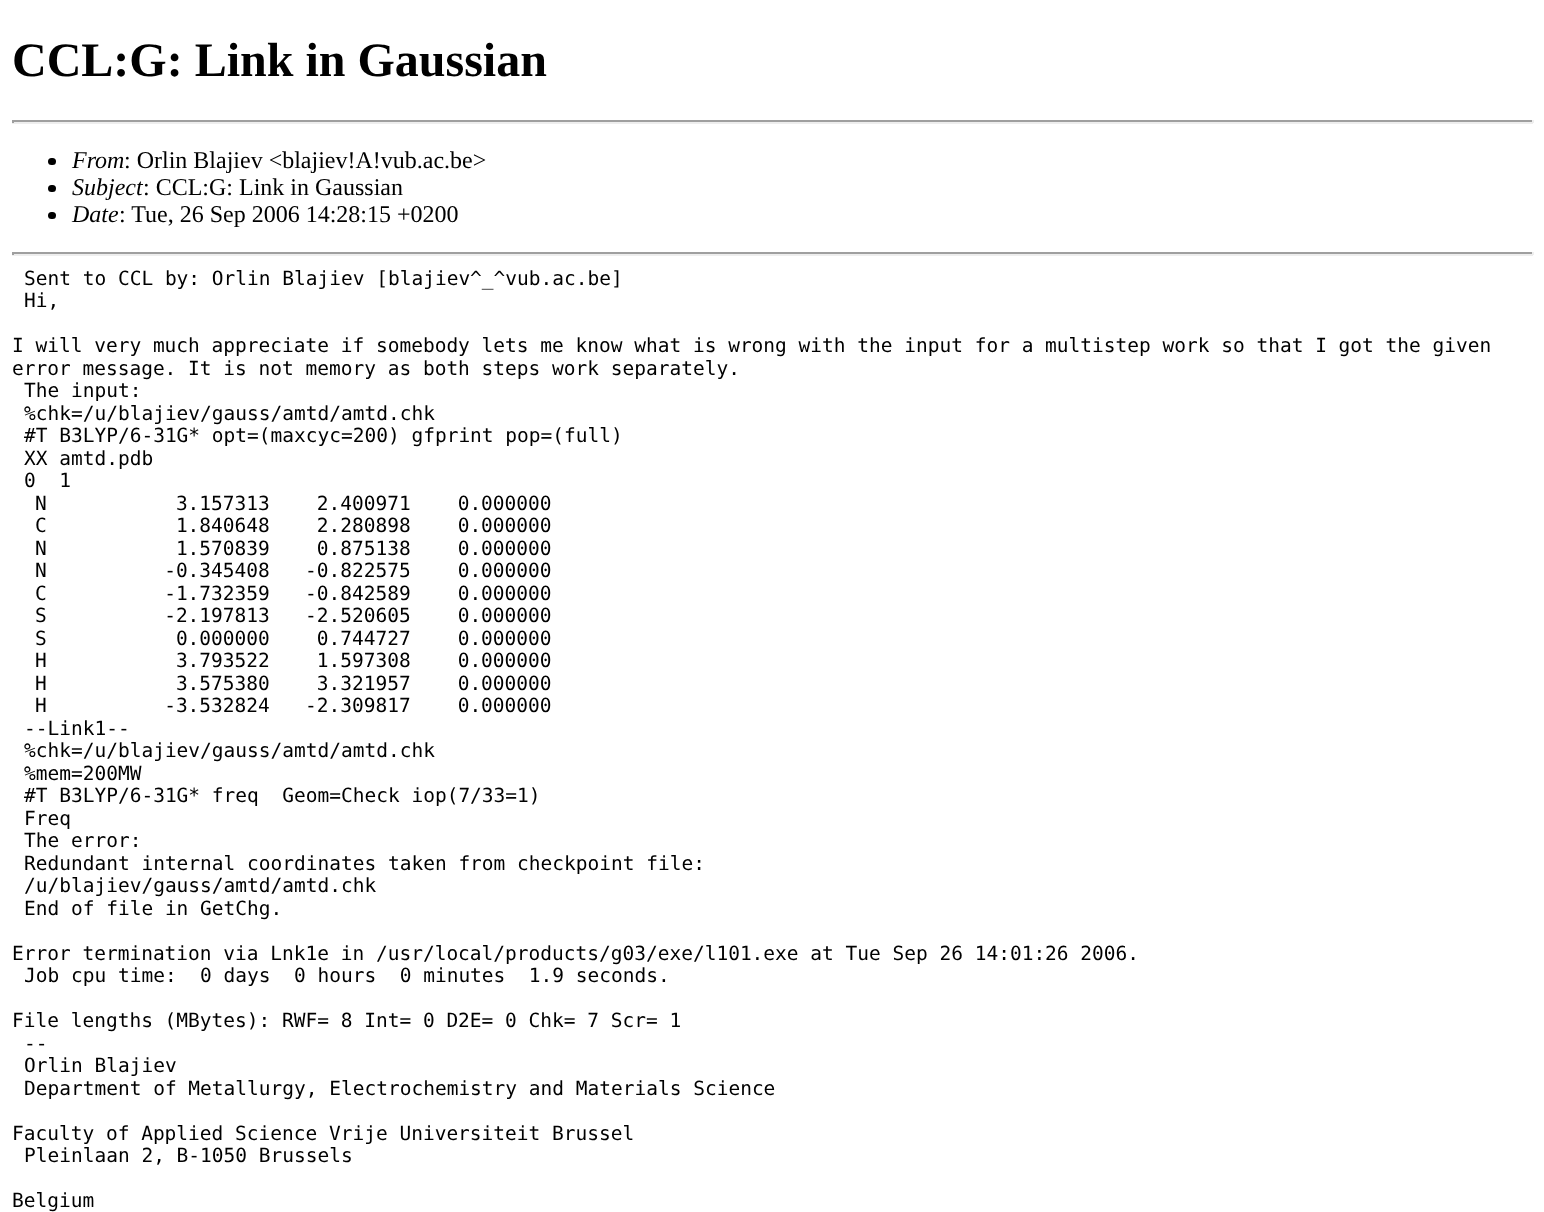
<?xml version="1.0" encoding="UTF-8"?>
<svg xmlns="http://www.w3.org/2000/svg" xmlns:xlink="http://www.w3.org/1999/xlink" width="1544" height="1212">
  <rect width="100%" height="100%" fill="#ffffff" />
  <rect x="12" y="120" width="1521" height="2" fill="#9f9f9f" />
  <rect x="1532" y="120" width="2" height="3" fill="#eeeeee" />
  <rect x="12" y="122" width="1521" height="2" fill="#eeeeee" />
  <rect x="12" y="120" width="2" height="3" fill="#9f9f9f" />
  <rect x="48" y="158" width="8" height="7" rx="3.5" fill="#000000" />
  <rect x="48" y="185" width="8" height="7" rx="3.5" fill="#000000" />
  <rect x="48" y="212" width="8" height="7" rx="3.5" fill="#000000" />
  <rect x="12" y="252" width="1521" height="2" fill="#9f9f9f" />
  <rect x="1532" y="252" width="2" height="3" fill="#eeeeee" />
  <rect x="12" y="254" width="1521" height="2" fill="#eeeeee" />
  <rect x="12" y="252" width="2" height="3" fill="#9f9f9f" />
  <text x="12" y="76" style="font-family: Liberation Serif; font-size: 48px; font-weight: bold; fill: #000000">CCL:G: Link in Gaussian</text>
  <text x="72" y="168" style="font-family: Liberation Serif; font-size: 24px; font-style: italic; fill: #000000">From</text>
  <text x="124" y="168" style="font-family: Liberation Serif; font-size: 24px; fill: #000000">: Orlin Blajiev &lt;blajiev!A!vub.ac.be&gt;</text>
  <text x="72" y="195" style="font-family: Liberation Serif; font-size: 24px; font-style: italic; fill: #000000">Subject</text>
  <text x="143" y="195" style="font-family: Liberation Serif; font-size: 24px; fill: #000000">: CCL:G: Link in Gaussian</text>
  <text x="72" y="222" style="font-family: Liberation Serif; font-size: 24px; font-style: italic; fill: #000000">Date</text>
  <text x="119" y="222" style="font-family: Liberation Serif; font-size: 24px; fill: #000000">: Tue, 26 Sep 2006 14:28:15 +0200</text>
  <text x="24" y="285" style="font-family: DejaVu Sans Mono; font-size: 19.5px; fill: #000000">Sent to CCL by: Orlin Blajiev [blajiev^_^vub.ac.be]</text>
  <text x="24" y="307" style="font-family: DejaVu Sans Mono; font-size: 19.5px; fill: #000000">Hi,</text>
  <text x="12" y="352" style="font-family: DejaVu Sans Mono; font-size: 19.5px; fill: #000000">I will very much appreciate if somebody lets me know what is wrong with the input for a multistep work so that I got the given</text>
  <text x="12" y="375" style="font-family: DejaVu Sans Mono; font-size: 19.5px; fill: #000000">error message. It is not memory as both steps work separately.</text>
  <text x="24" y="397" style="font-family: DejaVu Sans Mono; font-size: 19.5px; fill: #000000">The input:</text>
  <text x="24" y="420" style="font-family: DejaVu Sans Mono; font-size: 19.5px; fill: #000000">%chk=/u/blajiev/gauss/amtd/amtd.chk</text>
  <text x="24" y="442" style="font-family: DejaVu Sans Mono; font-size: 19.5px; fill: #000000">#T B3LYP/6-31G* opt=(maxcyc=200) gfprint pop=(full)</text>
  <text x="24" y="465" style="font-family: DejaVu Sans Mono; font-size: 19.5px; fill: #000000">XX amtd.pdb</text>
  <text x="24" y="487" style="font-family: DejaVu Sans Mono; font-size: 19.5px; fill: #000000" xml:space="preserve">0  1</text>
  <text x="35" y="510" style="font-family: DejaVu Sans Mono; font-size: 19.5px; fill: #000000" xml:space="preserve">N           3.157313    2.400971    0.000000</text>
  <text x="35" y="532" style="font-family: DejaVu Sans Mono; font-size: 19.5px; fill: #000000" xml:space="preserve">C           1.840648    2.280898    0.000000</text>
  <text x="35" y="555" style="font-family: DejaVu Sans Mono; font-size: 19.5px; fill: #000000" xml:space="preserve">N           1.570839    0.875138    0.000000</text>
  <text x="35" y="577" style="font-family: DejaVu Sans Mono; font-size: 19.5px; fill: #000000" xml:space="preserve">N          -0.345408   -0.822575    0.000000</text>
  <text x="35" y="600" style="font-family: DejaVu Sans Mono; font-size: 19.5px; fill: #000000" xml:space="preserve">C          -1.732359   -0.842589    0.000000</text>
  <text x="35" y="622" style="font-family: DejaVu Sans Mono; font-size: 19.5px; fill: #000000" xml:space="preserve">S          -2.197813   -2.520605    0.000000</text>
  <text x="35" y="645" style="font-family: DejaVu Sans Mono; font-size: 19.5px; fill: #000000" xml:space="preserve">S           0.000000    0.744727    0.000000</text>
  <text x="35" y="667" style="font-family: DejaVu Sans Mono; font-size: 19.5px; fill: #000000" xml:space="preserve">H           3.793522    1.597308    0.000000</text>
  <text x="35" y="690" style="font-family: DejaVu Sans Mono; font-size: 19.5px; fill: #000000" xml:space="preserve">H           3.575380    3.321957    0.000000</text>
  <text x="35" y="712" style="font-family: DejaVu Sans Mono; font-size: 19.5px; fill: #000000" xml:space="preserve">H          -3.532824   -2.309817    0.000000</text>
  <text x="24" y="735" style="font-family: DejaVu Sans Mono; font-size: 19.5px; fill: #000000">--Link1--</text>
  <text x="24" y="757" style="font-family: DejaVu Sans Mono; font-size: 19.5px; fill: #000000">%chk=/u/blajiev/gauss/amtd/amtd.chk</text>
  <text x="24" y="780" style="font-family: DejaVu Sans Mono; font-size: 19.5px; fill: #000000">%mem=200MW</text>
  <text x="24" y="802" style="font-family: DejaVu Sans Mono; font-size: 19.5px; fill: #000000" xml:space="preserve">#T B3LYP/6-31G* freq  Geom=Check iop(7/33=1)</text>
  <text x="24" y="825" style="font-family: DejaVu Sans Mono; font-size: 19.5px; fill: #000000">Freq</text>
  <text x="24" y="847" style="font-family: DejaVu Sans Mono; font-size: 19.5px; fill: #000000">The error:</text>
  <text x="24" y="870" style="font-family: DejaVu Sans Mono; font-size: 19.5px; fill: #000000">Redundant internal coordinates taken from checkpoint file:</text>
  <text x="24" y="892" style="font-family: DejaVu Sans Mono; font-size: 19.5px; fill: #000000">/u/blajiev/gauss/amtd/amtd.chk</text>
  <text x="24" y="915" style="font-family: DejaVu Sans Mono; font-size: 19.5px; fill: #000000">End of file in GetChg.</text>
  <text x="12" y="960" style="font-family: DejaVu Sans Mono; font-size: 19.5px; fill: #000000">Error termination via Lnk1e in /usr/local/products/g03/exe/l101.exe at Tue Sep 26 14:01:26 2006.</text>
  <text x="24" y="982" style="font-family: DejaVu Sans Mono; font-size: 19.5px; fill: #000000" xml:space="preserve">Job cpu time:  0 days  0 hours  0 minutes  1.9 seconds.</text>
  <text x="12" y="1027" style="font-family: DejaVu Sans Mono; font-size: 19.5px; fill: #000000">File lengths (MBytes): RWF= 8 Int= 0 D2E= 0 Chk= 7 Scr= 1</text>
  <text x="24" y="1050" style="font-family: DejaVu Sans Mono; font-size: 19.5px; fill: #000000">--</text>
  <text x="24" y="1072" style="font-family: DejaVu Sans Mono; font-size: 19.5px; fill: #000000">Orlin Blajiev</text>
  <text x="24" y="1095" style="font-family: DejaVu Sans Mono; font-size: 19.5px; fill: #000000">Department of Metallurgy, Electrochemistry and Materials Science</text>
  <text x="12" y="1140" style="font-family: DejaVu Sans Mono; font-size: 19.5px; fill: #000000">Faculty of Applied Science Vrije Universiteit Brussel</text>
  <text x="24" y="1162" style="font-family: DejaVu Sans Mono; font-size: 19.5px; fill: #000000">Pleinlaan 2, B-1050 Brussels</text>
  <text x="12" y="1207" style="font-family: DejaVu Sans Mono; font-size: 19.5px; fill: #000000">Belgium</text>
</svg>
